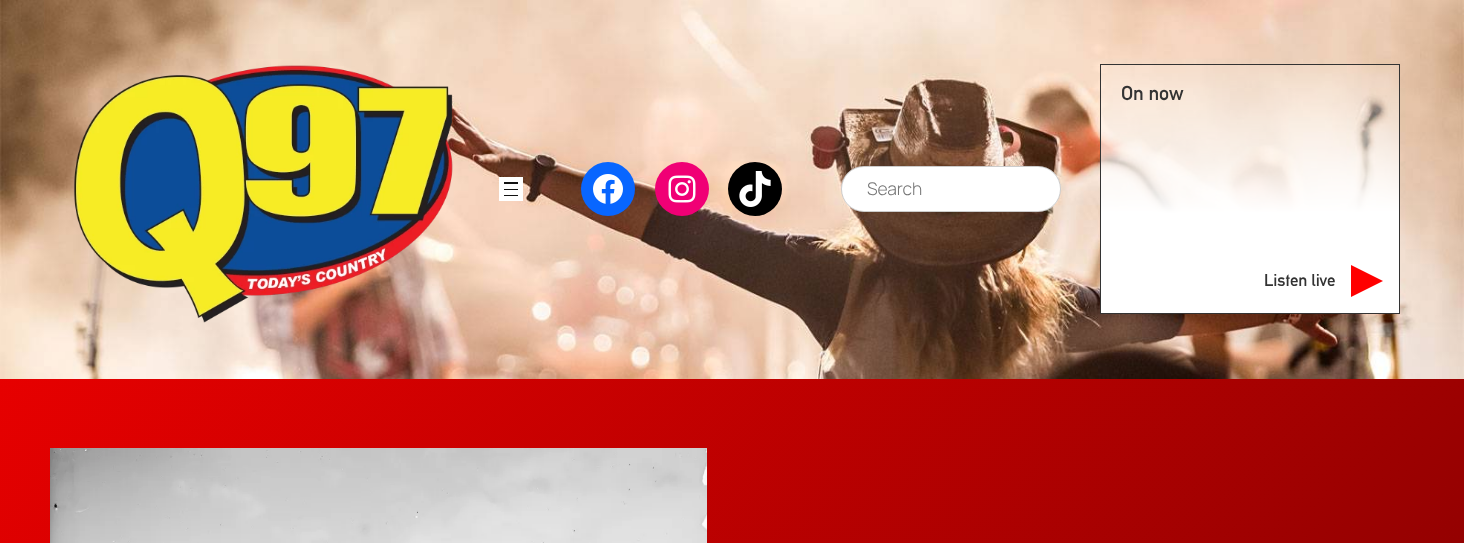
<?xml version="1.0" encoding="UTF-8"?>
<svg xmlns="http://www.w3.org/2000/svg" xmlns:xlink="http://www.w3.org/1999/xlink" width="1464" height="543">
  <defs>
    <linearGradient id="g1" gradientUnits="userSpaceOnUse" x1="-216" y1="216" x2="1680" y2="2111"><stop offset="0" stop-color="#fa0000" /><stop offset="1" stop-color="#3a0202" /></linearGradient>
  </defs>
  <rect width="100%" height="100%" fill="#ffffff" />
  <rect y="379" width="1464" height="164" fill="url(#g1)" />
  <image x="0" y="0" width="1464" height="379" xlink:href="image1.png" />
  <image x="74" y="65" width="379" height="258" xlink:href="image2.png" />
  <rect x="499" y="177" width="24" height="24" fill="#ffffff" />
  <rect x="504" y="182" width="14" height="2" fill="#111111" />
  <rect x="504" y="189" width="14" height="1" fill="#111111" />
  <rect x="504" y="195" width="14" height="1" fill="#111111" />
  <circle cx="608" cy="189" r="27" fill="#0866ff" />
  <image x="593" y="174" width="30" height="30" xlink:href="image3.png" />
  <circle cx="682" cy="189" r="27" fill="#f00075" />
  <image x="668" y="175" width="28" height="28" xlink:href="image4.png" />
  <circle cx="755" cy="189" r="27" fill="#000000" />
  <image x="739" y="171" width="32" height="36" xlink:href="image5.png" />
  <rect x="841" y="166" width="220" height="46" rx="23" fill="#ffffff" />
  <rect x="841.5" y="166.5" width="219" height="45" rx="22.5" fill="none" stroke="#000000" stroke-opacity="0.2" />
  <rect x="1100.5" y="64.5" width="299" height="249" fill="none" stroke="#333333" />
  <rect x="1101" y="213" width="298" height="100" fill="#ffffff" />
  <path d="M 1351 297 v -32 l 32 16 z" fill="#ff0000" />
  <image x="50" y="448" width="657" height="95" xlink:href="image6.png" />
  <text x="867" y="195" style="font-family: Manrope; font-size: 17.5px; font-weight: 300; letter-spacing: -0.1px; fill: #757575">Search</text>
  <text x="1121" y="100" style="font-family: 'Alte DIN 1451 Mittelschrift'; font-size: 20px; letter-spacing: -0.1px; fill: #333333">On now</text>
  <text x="1264" y="286" style="font-family: 'Alte DIN 1451 Mittelschrift'; font-size: 17px; letter-spacing: -0.1px; fill: #333333">Listen live</text>
</svg>
